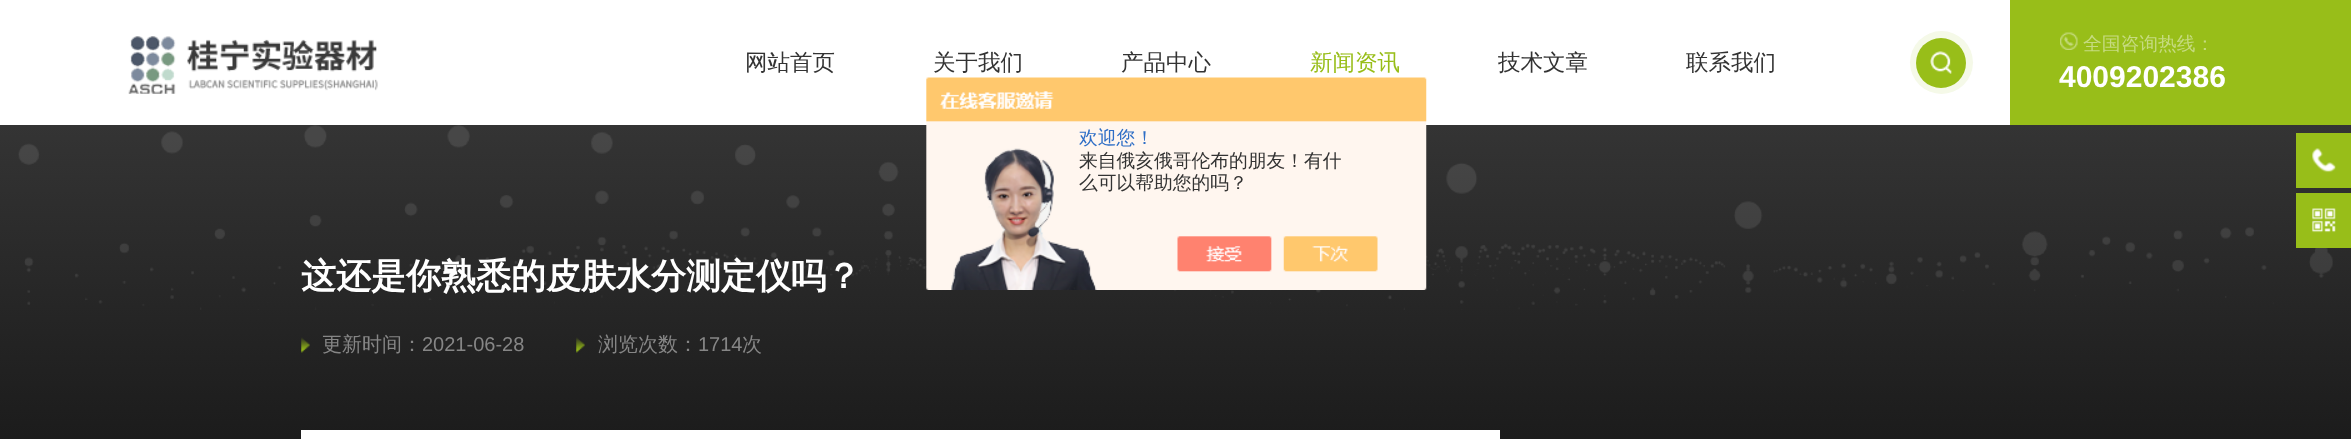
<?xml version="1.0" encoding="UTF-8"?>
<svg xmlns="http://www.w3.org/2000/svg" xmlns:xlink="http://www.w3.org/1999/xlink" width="2351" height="439">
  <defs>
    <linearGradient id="g1" gradientUnits="userSpaceOnUse" x1="1176" y1="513" x2="1176" y2="125"><stop offset="0" stop-color="#161616" /><stop offset="1" stop-color="#343434" /></linearGradient>
  </defs>
  <rect width="100%" height="100%" fill="#ffffff" />
  <image x="128" y="36" width="250" height="58" xlink:href="image1.png" />
  <circle cx="1941.5" cy="62.5" r="31.5" fill="#f5f9e8" />
  <circle cx="1941" cy="63" r="25" fill="#98be19" />
  <image x="1930" y="51" width="22" height="23" xlink:href="image2.png" />
  <rect x="2010" width="341" height="125" fill="#98be19" />
  <image x="2060" y="32" width="18" height="18" xlink:href="image3.png" />
  <rect y="125" width="2351" height="314" fill="url(#g1)" />
  <image x="301" y="337" width="9" height="16" xlink:href="image8.png" />
  <image x="576" y="337" width="9" height="16" xlink:href="image8.png" />
  <rect x="301" y="430" width="1199" height="9" fill="#ffffff" />
  <text x="745" y="70" style="font-family: WenQuanYi Zen Hei; font-size: 22.5px; font-weight: 500; fill: #333333">网站首页</text>
  <text x="933" y="70" style="font-family: WenQuanYi Zen Hei; font-size: 22.5px; font-weight: 500; fill: #333333">关于我们</text>
  <text x="1121" y="70" style="font-family: WenQuanYi Zen Hei; font-size: 22.5px; font-weight: 500; fill: #333333">产品中心</text>
  <text x="1310" y="70" style="font-family: WenQuanYi Zen Hei; font-size: 22.5px; font-weight: 500; fill: #98be19">新闻资讯</text>
  <text x="1498" y="70" style="font-family: WenQuanYi Zen Hei; font-size: 22.5px; font-weight: 500; fill: #333333">技术文章</text>
  <text x="1686" y="70" style="font-family: WenQuanYi Zen Hei; font-size: 22.5px; font-weight: 500; fill: #333333">联系我们</text>
  <text x="2083" y="50" style="font-family: WenQuanYi Zen Hei; font-size: 18.75px; font-weight: 500; fill: #c6db81">全国咨询热线：</text>
  <text x="2059" y="87" style="font-family: Liberation Sans; font-size: 30px; font-weight: bold; fill: #ffffff">4009202386</text>
  <text x="301" y="288" style="font-family: WenQuanYi Zen Hei; font-size: 35px; font-weight: bold; fill: #ffffff">这还是你熟悉的皮肤水分测定仪吗？</text>
  <image x="18" y="125" width="2315" height="185" xlink:href="image7.png" />
  <image x="926" y="77" width="501" height="213" xlink:href="image4.png" />
  <text x="1079" y="189" style="font-family: WenQuanYi Zen Hei; font-size: 18.75px; font-weight: 500; fill: #333333">么可以帮助您的吗？</text>
  <text x="1079" y="167" style="font-family: WenQuanYi Zen Hei; font-size: 18.75px; font-weight: 500; fill: #333333">来自俄亥俄哥伦布的朋友！有什</text>
  <text x="1079" y="144" style="font-family: WenQuanYi Zen Hei; font-size: 18.75px; font-weight: 500; fill: #2e6ec6">欢迎您！</text>
  <rect x="2296" y="193" width="55" height="55" fill="#98be19" />
  <image x="2312" y="208" width="24" height="25" xlink:href="image6.png" />
  <rect x="2296" y="133" width="55" height="55" fill="#98be19" />
  <image x="2312" y="148" width="24" height="25" xlink:href="image5.png" />
  <text x="322" y="351" style="font-family: WenQuanYi Zen Hei; font-size: 20px; font-weight: 500; fill: #868686">更新时间：</text>
  <text x="422" y="351" style="font-family: Liberation Sans; font-size: 20px; fill: #868686">2021-06-28</text>
  <text x="598" y="351" style="font-family: WenQuanYi Zen Hei; font-size: 20px; font-weight: 500; fill: #868686">浏览次数：</text>
  <text x="698" y="351" style="font-family: Liberation Sans; font-size: 20px; fill: #868686">1714</text>
  <text x="742" y="351" style="font-family: WenQuanYi Zen Hei; font-size: 20px; font-weight: 500; fill: #868686">次</text>
</svg>
